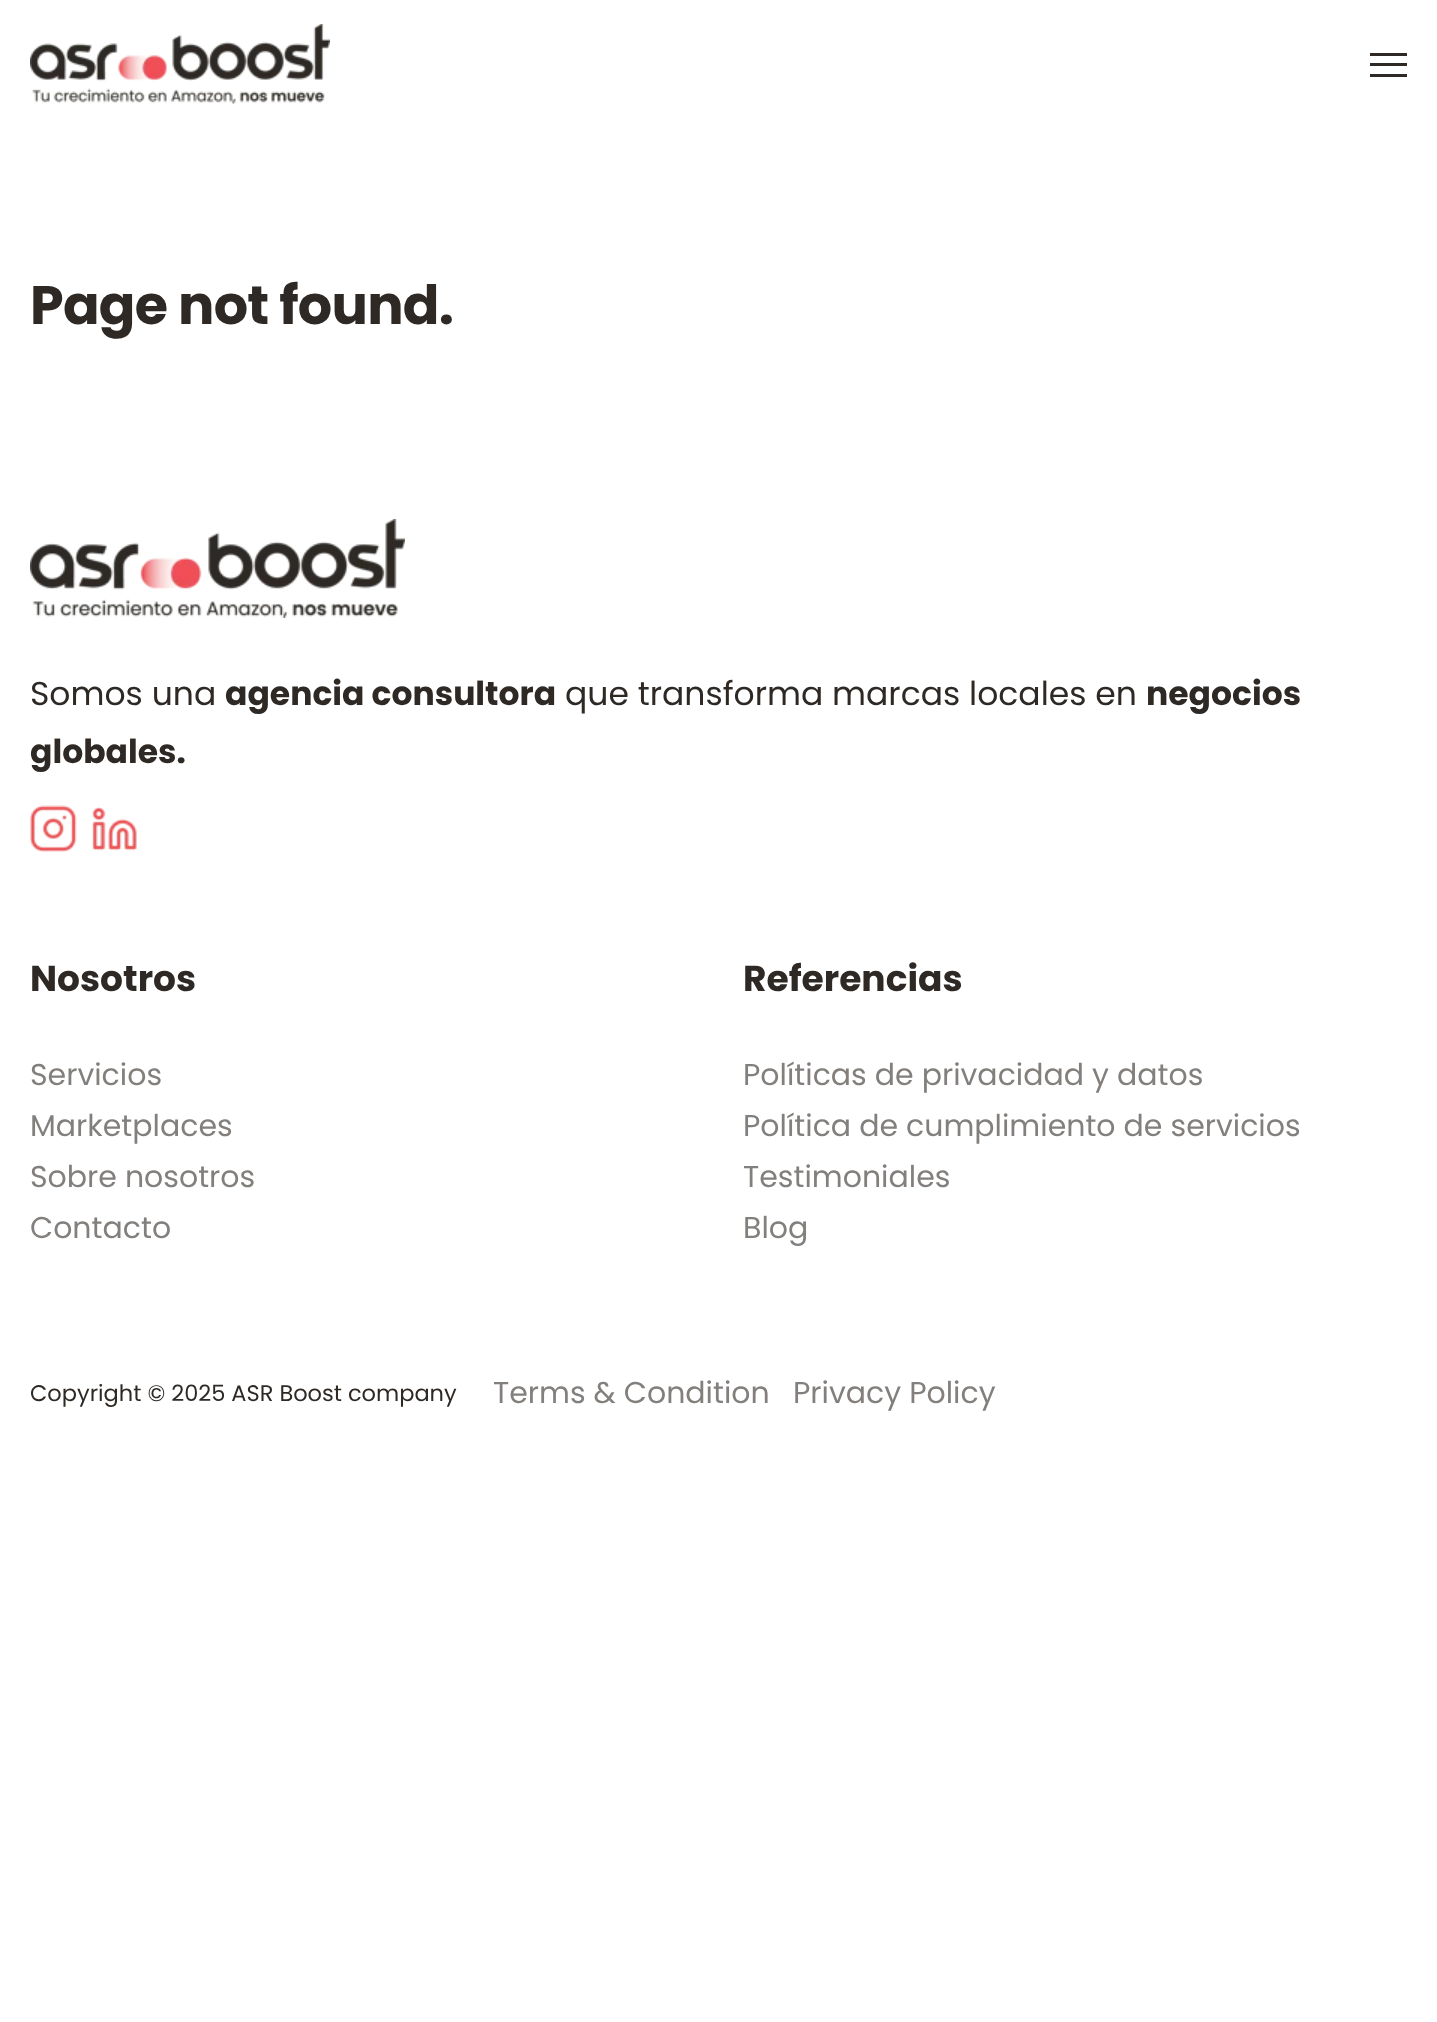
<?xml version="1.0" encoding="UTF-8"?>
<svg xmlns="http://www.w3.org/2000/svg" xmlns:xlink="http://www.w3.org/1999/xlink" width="1437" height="2022">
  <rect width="100%" height="100%" fill="#ffffff" />
  <image x="30" y="24" width="300" height="80" xlink:href="image1.png" />
  <rect x="1370" y="63" width="37" height="3" fill="#2e2925" />
  <rect x="1370" y="53" width="37" height="3" fill="#2e2925" />
  <rect x="1370" y="74" width="37" height="3" fill="#2e2925" />
  <image x="30" y="519" width="375" height="99" xlink:href="image2.png" />
  <image x="30" y="805" width="47" height="47" xlink:href="image3.png" />
  <image x="92" y="807" width="45" height="44" xlink:href="image4.png" />
  <text x="30" y="324" style="font-family: Poppins; font-size: 54px; font-weight: bold; letter-spacing: -0.75px; fill: #2e2925">Page not found.</text>
  <text x="30" y="705" style="font-family: Poppins; font-size: 33px; fill: #2e2925">Somos una</text>
  <text x="225" y="705" style="font-family: Poppins; font-size: 33px; font-weight: bold; fill: #2e2925">agencia consultora</text>
  <text x="565" y="705" style="font-family: Poppins; font-size: 33px; fill: #2e2925">que transforma marcas locales en</text>
  <text x="1146" y="705" style="font-family: Poppins; font-size: 33px; font-weight: bold; fill: #2e2925">negocios</text>
  <text x="30" y="763" style="font-family: Poppins; font-size: 33px; font-weight: bold; fill: #2e2925">globales.</text>
  <text x="30" y="991" style="font-family: Poppins; font-size: 36px; font-weight: bold; fill: #2e2925">Nosotros</text>
  <text x="30" y="1085" style="font-family: Poppins; font-size: 30px; fill: #827f7c">Servicios</text>
  <text x="30" y="1136" style="font-family: Poppins; font-size: 30px; fill: #827f7c">Marketplaces</text>
  <text x="30" y="1187" style="font-family: Poppins; font-size: 30px; fill: #827f7c">Sobre nosotros</text>
  <text x="30" y="1238" style="font-family: Poppins; font-size: 30px; fill: #827f7c">Contacto</text>
  <text x="743" y="991" style="font-family: Poppins; font-size: 36px; font-weight: bold; fill: #2e2925">Referencias</text>
  <text x="743" y="1085" style="font-family: Poppins; font-size: 30px; fill: #827f7c">Políticas de privacidad y datos</text>
  <text x="743" y="1136" style="font-family: Poppins; font-size: 30px; fill: #827f7c">Política de cumplimiento de servicios</text>
  <text x="743" y="1187" style="font-family: Poppins; font-size: 30px; fill: #827f7c">Testimoniales</text>
  <text x="743" y="1238" style="font-family: Poppins; font-size: 30px; fill: #827f7c">Blog</text>
  <text x="30" y="1401" style="font-family: Poppins; font-size: 22.5px; fill: #2e2925">Copyright © 2025 ASR Boost company</text>
  <text x="493" y="1403" style="font-family: Poppins; font-size: 30px; fill: #827f7c">Terms &amp; Condition</text>
  <text x="793" y="1403" style="font-family: Poppins; font-size: 30px; fill: #827f7c">Privacy Policy</text>
</svg>
